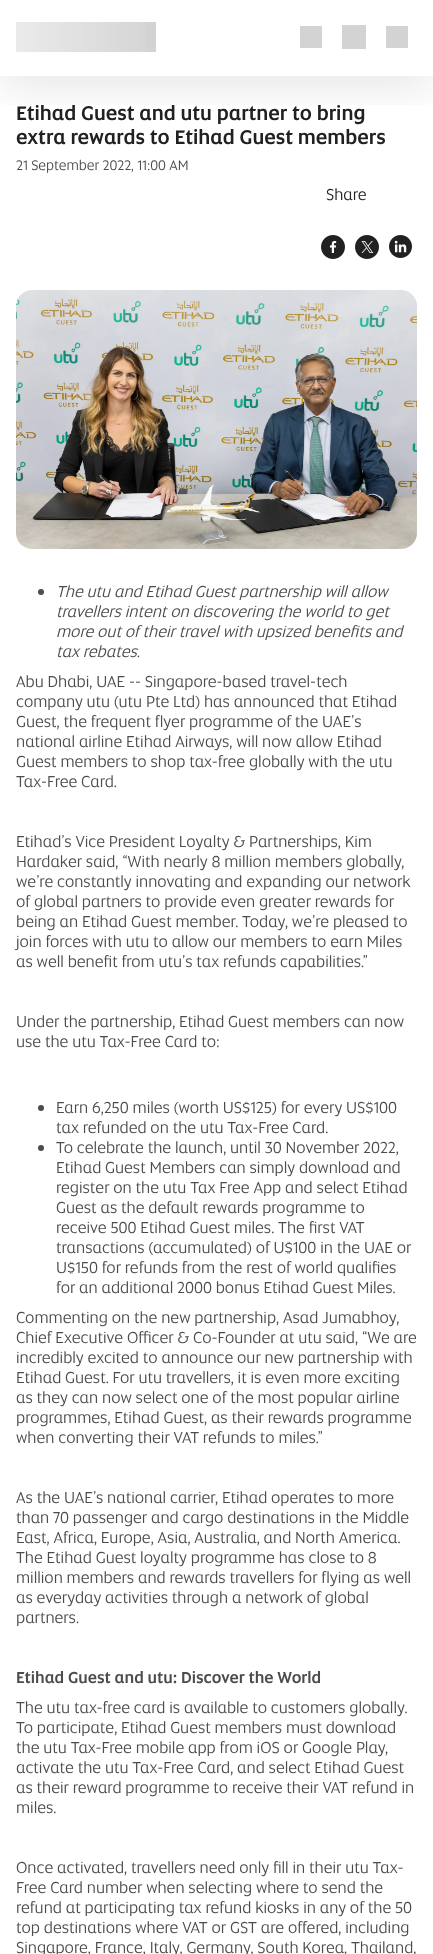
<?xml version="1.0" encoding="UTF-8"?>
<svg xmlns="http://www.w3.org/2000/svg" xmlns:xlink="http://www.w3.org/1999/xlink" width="433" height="1954">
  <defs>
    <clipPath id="clip1"><rect x="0" y="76" width="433" height="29" /></clipPath>
    <linearGradient id="g1" gradientUnits="userSpaceOnUse" x1="-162" y1="50" x2="162" y2="50"><stop offset="0" stop-color="#ffffff" stop-opacity="0" /><stop offset="0.5" stop-color="#ffffff" stop-opacity="0.6" /><stop offset="1" stop-color="#ffffff" stop-opacity="0" /></linearGradient>
  </defs>
  <rect width="100%" height="100%" fill="#ffffff" />
  <g clip-path="url(#clip1)">
    <rect y="10" width="433" height="76" fill="#000000" fill-opacity="0.1" filter="blur(22.5px)" />
  </g>
  <rect x="16" y="22" width="140" height="30" fill="#d3d3d3" />
  <rect x="300" y="26" width="22" height="22" fill="#d3d3d3" />
  <rect x="342" y="25" width="24" height="24" fill="#d3d3d3" />
  <rect x="386" y="26" width="22" height="22" fill="#d3d3d3" />
  <rect x="16" y="22" width="130" height="30" fill="url(#g1)" />
  <image x="321" y="235" width="24" height="24" xlink:href="image1.png" />
  <image x="355" y="235" width="24" height="24" xlink:href="image2.png" />
  <image x="389" y="235" width="23" height="23" xlink:href="image3.png" />
  <image x="16" y="290" width="401" height="259" xlink:href="image4.png" />
  <circle cx="41" cy="592" r="3" fill="#4e4c4a" />
  <circle cx="41" cy="1108" r="3" fill="#4e4c4a" />
  <circle cx="41" cy="1148" r="3" fill="#4e4c4a" />
  <text x="16" y="120" style="font-family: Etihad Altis; font-size: 20px; font-weight: 500; fill: #212121">Etihad Guest and utu partner to bring</text>
  <text x="16" y="144" style="font-family: Etihad Altis; font-size: 20px; font-weight: 500; fill: #212121">extra rewards to Etihad Guest members</text>
  <text x="16" y="170" style="font-family: Etihad Altis; font-size: 14px; fill: #4e4c4a">21 September 2022, 11:00 AM</text>
  <text x="326" y="200" style="font-family: Etihad Altis; font-size: 16px; fill: #212121">Share</text>
  <text x="56" y="597" style="font-family: Etihad Altis; font-size: 16px; font-style: italic; fill: #4e4c4a">The utu and Etihad Guest partnership will allow</text>
  <text x="56" y="617" style="font-family: Etihad Altis; font-size: 16px; font-style: italic; fill: #4e4c4a">travellers intent on discovering the world to get</text>
  <text x="56" y="637" style="font-family: Etihad Altis; font-size: 16px; font-style: italic; fill: #4e4c4a">more out of their travel with upsized benefits and</text>
  <text x="56" y="657" style="font-family: Etihad Altis; font-size: 16px; font-style: italic; fill: #4e4c4a">tax rebates.</text>
  <text x="16" y="687" style="font-family: Etihad Altis; font-size: 16px; fill: #4e4c4a">Abu Dhabi, UAE -- Singapore-based travel-tech</text>
  <text x="16" y="707" style="font-family: Etihad Altis; font-size: 16px; fill: #4e4c4a">company utu (utu Pte Ltd) has announced that Etihad</text>
  <text x="16" y="727" style="font-family: Etihad Altis; font-size: 16px; fill: #4e4c4a">Guest, the frequent flyer programme of the UAE’s</text>
  <text x="16" y="747" style="font-family: Etihad Altis; font-size: 16px; fill: #4e4c4a">national airline Etihad Airways, will now allow Etihad</text>
  <text x="16" y="767" style="font-family: Etihad Altis; font-size: 16px; fill: #4e4c4a">Guest members to shop tax-free globally with the utu</text>
  <text x="16" y="787" style="font-family: Etihad Altis; font-size: 16px; fill: #4e4c4a">Tax-Free Card.</text>
  <text x="16" y="847" style="font-family: Etihad Altis; font-size: 16px; fill: #4e4c4a">Etihad’s Vice President Loyalty &amp; Partnerships, Kim</text>
  <text x="16" y="867" style="font-family: Etihad Altis; font-size: 16px; fill: #4e4c4a">Hardaker said, “With nearly 8 million members globally,</text>
  <text x="16" y="887" style="font-family: Etihad Altis; font-size: 16px; fill: #4e4c4a">we’re constantly innovating and expanding our network</text>
  <text x="16" y="907" style="font-family: Etihad Altis; font-size: 16px; fill: #4e4c4a">of global partners to provide even greater rewards for</text>
  <text x="16" y="927" style="font-family: Etihad Altis; font-size: 16px; fill: #4e4c4a">being an Etihad Guest member. Today, we’re pleased to</text>
  <text x="16" y="947" style="font-family: Etihad Altis; font-size: 16px; fill: #4e4c4a">join forces with utu to allow our members to earn Miles</text>
  <text x="16" y="967" style="font-family: Etihad Altis; font-size: 16px; fill: #4e4c4a">as well benefit from utu’s tax refunds capabilities.”</text>
  <text x="16" y="1027" style="font-family: Etihad Altis; font-size: 16px; fill: #4e4c4a">Under the partnership, Etihad Guest members can now</text>
  <text x="16" y="1047" style="font-family: Etihad Altis; font-size: 16px; fill: #4e4c4a">use the utu Tax-Free Card to:</text>
  <text x="56" y="1113" style="font-family: Etihad Altis; font-size: 16px; fill: #4e4c4a">Earn 6,250 miles (worth US$125) for every US$100</text>
  <text x="56" y="1133" style="font-family: Etihad Altis; font-size: 16px; fill: #4e4c4a">tax refunded on the utu Tax-Free Card.</text>
  <text x="56" y="1153" style="font-family: Etihad Altis; font-size: 16px; fill: #4e4c4a">To celebrate the launch, until 30 November 2022,</text>
  <text x="56" y="1173" style="font-family: Etihad Altis; font-size: 16px; fill: #4e4c4a">Etihad Guest Members can simply download and</text>
  <text x="56" y="1193" style="font-family: Etihad Altis; font-size: 16px; fill: #4e4c4a">register on the utu Tax Free App and select Etihad</text>
  <text x="56" y="1213" style="font-family: Etihad Altis; font-size: 16px; fill: #4e4c4a">Guest as the default rewards programme to</text>
  <text x="56" y="1233" style="font-family: Etihad Altis; font-size: 16px; fill: #4e4c4a">receive 500 Etihad Guest miles. The first VAT</text>
  <text x="56" y="1253" style="font-family: Etihad Altis; font-size: 16px; fill: #4e4c4a">transactions (accumulated) of U$100 in the UAE or</text>
  <text x="56" y="1273" style="font-family: Etihad Altis; font-size: 16px; fill: #4e4c4a">U$150 for refunds from the rest of world qualifies</text>
  <text x="56" y="1293" style="font-family: Etihad Altis; font-size: 16px; fill: #4e4c4a">for an additional 2000 bonus Etihad Guest Miles.</text>
  <text x="16" y="1323" style="font-family: Etihad Altis; font-size: 16px; fill: #4e4c4a">Commenting on the new partnership, Asad Jumabhoy,</text>
  <text x="16" y="1343" style="font-family: Etihad Altis; font-size: 16px; fill: #4e4c4a">Chief Executive Officer &amp; Co-Founder at utu said, “We are</text>
  <text x="16" y="1363" style="font-family: Etihad Altis; font-size: 16px; fill: #4e4c4a">incredibly excited to announce our new partnership with</text>
  <text x="16" y="1383" style="font-family: Etihad Altis; font-size: 16px; fill: #4e4c4a">Etihad Guest. For utu travellers, it is even more exciting</text>
  <text x="16" y="1403" style="font-family: Etihad Altis; font-size: 16px; fill: #4e4c4a">as they can now select one of the most popular airline</text>
  <text x="16" y="1423" style="font-family: Etihad Altis; font-size: 16px; fill: #4e4c4a">programmes, Etihad Guest, as their rewards programme</text>
  <text x="16" y="1443" style="font-family: Etihad Altis; font-size: 16px; fill: #4e4c4a">when converting their VAT refunds to miles.”</text>
  <text x="16" y="1503" style="font-family: Etihad Altis; font-size: 16px; fill: #4e4c4a">As the UAE’s national carrier, Etihad operates to more</text>
  <text x="16" y="1523" style="font-family: Etihad Altis; font-size: 16px; fill: #4e4c4a">than 70 passenger and cargo destinations in the Middle</text>
  <text x="16" y="1543" style="font-family: Etihad Altis; font-size: 16px; fill: #4e4c4a">East, Africa, Europe, Asia, Australia, and North America.</text>
  <text x="16" y="1563" style="font-family: Etihad Altis; font-size: 16px; fill: #4e4c4a">The Etihad Guest loyalty programme has close to 8</text>
  <text x="16" y="1583" style="font-family: Etihad Altis; font-size: 16px; fill: #4e4c4a">million members and rewards travellers for flying as well</text>
  <text x="16" y="1603" style="font-family: Etihad Altis; font-size: 16px; fill: #4e4c4a">as everyday activities through a network of global</text>
  <text x="16" y="1623" style="font-family: Etihad Altis; font-size: 16px; fill: #4e4c4a">partners.</text>
  <text x="16" y="1683" style="font-family: Etihad Altis; font-size: 16px; font-weight: 500; fill: #4e4c4a">Etihad Guest and utu: Discover the World</text>
  <text x="16" y="1713" style="font-family: Etihad Altis; font-size: 16px; fill: #4e4c4a">The utu tax-free card is available to customers globally.</text>
  <text x="16" y="1733" style="font-family: Etihad Altis; font-size: 16px; fill: #4e4c4a">To participate, Etihad Guest members must download</text>
  <text x="16" y="1753" style="font-family: Etihad Altis; font-size: 16px; fill: #4e4c4a">the utu Tax-Free mobile app from iOS or Google Play,</text>
  <text x="16" y="1773" style="font-family: Etihad Altis; font-size: 16px; fill: #4e4c4a">activate the utu Tax-Free Card, and select Etihad Guest</text>
  <text x="16" y="1793" style="font-family: Etihad Altis; font-size: 16px; fill: #4e4c4a">as their reward programme to receive their VAT refund in</text>
  <text x="16" y="1813" style="font-family: Etihad Altis; font-size: 16px; fill: #4e4c4a">miles.</text>
  <text x="16" y="1873" style="font-family: Etihad Altis; font-size: 16px; fill: #4e4c4a">Once activated, travellers need only fill in their utu Tax-</text>
  <text x="16" y="1893" style="font-family: Etihad Altis; font-size: 16px; fill: #4e4c4a">Free Card number when selecting where to send the</text>
  <text x="16" y="1913" style="font-family: Etihad Altis; font-size: 16px; fill: #4e4c4a">refund at participating tax refund kiosks in any of the 50</text>
  <text x="16" y="1933" style="font-family: Etihad Altis; font-size: 16px; fill: #4e4c4a">top destinations where VAT or GST are offered, including</text>
  <text x="16" y="1953" style="font-family: Etihad Altis; font-size: 16px; fill: #4e4c4a">Singapore, France, Italy, Germany, South Korea, Thailand,</text>
</svg>
